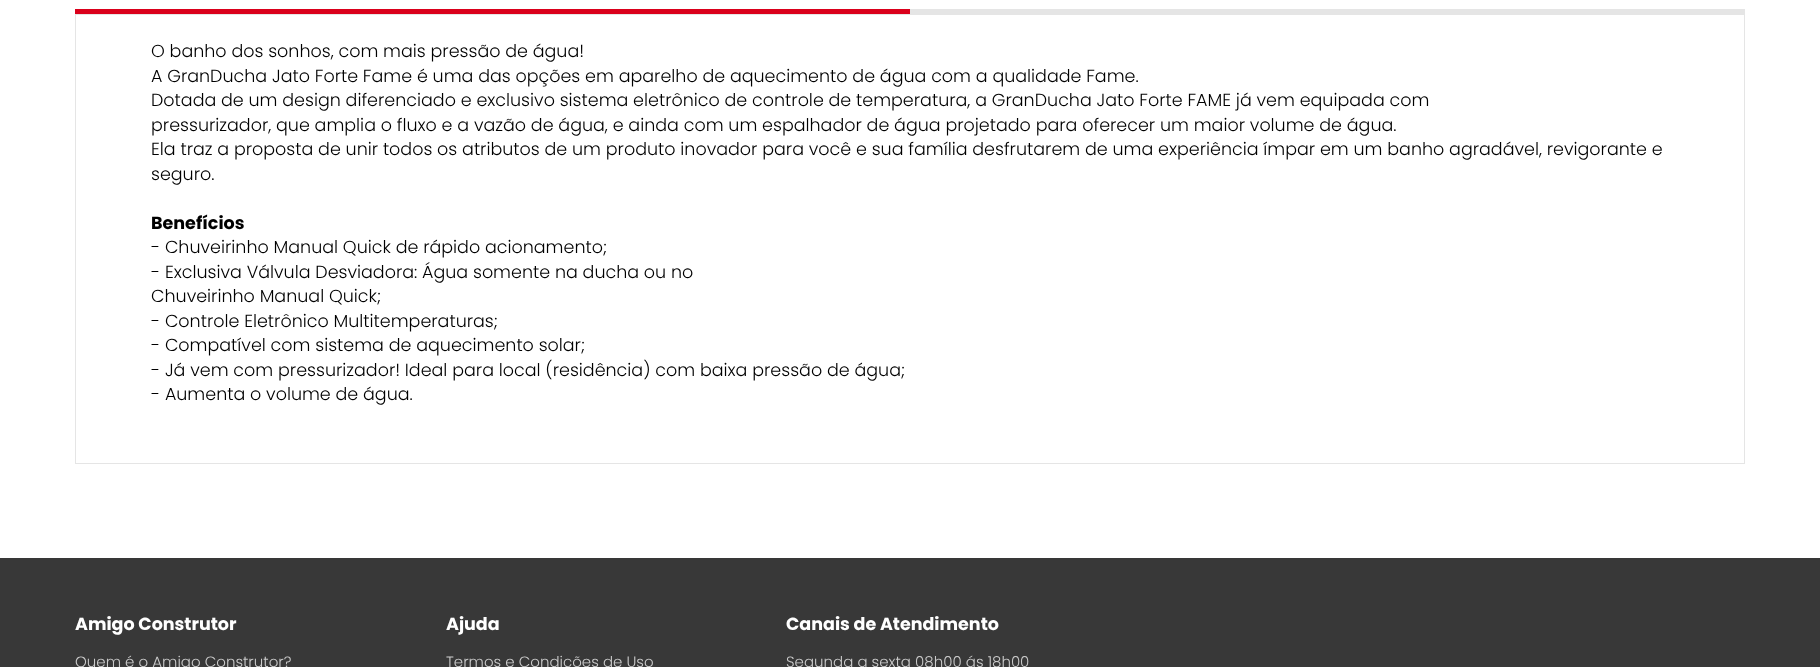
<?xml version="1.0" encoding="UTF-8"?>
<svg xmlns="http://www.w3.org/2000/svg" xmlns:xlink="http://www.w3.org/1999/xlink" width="1820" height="667">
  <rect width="100%" height="100%" fill="#ffffff" />
  <rect x="75" y="9" width="835" height="5" fill="#da001b" />
  <rect x="910" y="9" width="835" height="5" fill="#e5e5e5" />
  <rect x="75.5" y="14.5" width="1669" height="449" fill="none" stroke="#e5e5e5" />
  <rect y="558" width="1820" height="109" fill="#383838" />
  <text x="151" y="57" style="font-family: Poppins; font-size: 17.5px; font-weight: 300; fill: #000000">O banho dos sonhos, com mais pressão de água!</text>
  <text x="151" y="82" style="font-family: Poppins; font-size: 17.5px; font-weight: 300; fill: #000000">A GranDucha Jato Forte Fame é uma das opções em aparelho de aquecimento de água com a qualidade Fame.</text>
  <text x="151" y="106" style="font-family: Poppins; font-size: 17.5px; font-weight: 300; fill: #000000">Dotada de um design diferenciado e exclusivo sistema eletrônico de controle de temperatura, a GranDucha Jato Forte FAME já vem equipada com</text>
  <text x="151" y="131" style="font-family: Poppins; font-size: 17.5px; font-weight: 300; fill: #000000">pressurizador, que amplia o fluxo e a vazão de água, e ainda com um espalhador de água projetado para oferecer um maior volume de água.</text>
  <text x="151" y="155" style="font-family: Poppins; font-size: 17.5px; font-weight: 300; fill: #000000">Ela traz a proposta de unir todos os atributos de um produto inovador para você e sua família desfrutarem de uma experiência ímpar em um banho agradável, revigorante e</text>
  <text x="151" y="180" style="font-family: Poppins; font-size: 17.5px; font-weight: 300; fill: #000000">seguro.</text>
  <text x="151" y="229" style="font-family: Poppins; font-size: 17.5px; font-weight: bold; fill: #000000">Benefícios</text>
  <text x="151" y="253" style="font-family: Poppins; font-size: 17.5px; font-weight: 300; fill: #000000">- Chuveirinho Manual Quick de rápido acionamento;</text>
  <text x="151" y="278" style="font-family: Poppins; font-size: 17.5px; font-weight: 300; fill: #000000">- Exclusiva Válvula Desviadora: Água somente na ducha ou no</text>
  <text x="151" y="302" style="font-family: Poppins; font-size: 17.5px; font-weight: 300; fill: #000000">Chuveirinho Manual Quick;</text>
  <text x="151" y="327" style="font-family: Poppins; font-size: 17.5px; font-weight: 300; fill: #000000">- Controle Eletrônico Multitemperaturas;</text>
  <text x="151" y="351" style="font-family: Poppins; font-size: 17.5px; font-weight: 300; fill: #000000">- Compatível com sistema de aquecimento solar;</text>
  <text x="151" y="376" style="font-family: Poppins; font-size: 17.5px; font-weight: 300; fill: #000000">- Já vem com pressurizador! Ideal para local (residência) com baixa pressão de água;</text>
  <text x="151" y="400" style="font-family: Poppins; font-size: 17.5px; font-weight: 300; fill: #000000">- Aumenta o volume de água.</text>
  <text x="75" y="630" style="font-family: Poppins; font-size: 17.5px; font-weight: bold; fill: #ffffff">Amigo Construtor</text>
  <text x="75" y="667" style="font-family: Poppins; font-size: 15px; font-weight: 300; fill: #cccccc">Quem é o Amigo Construtor?</text>
  <text x="446" y="630" style="font-family: Poppins; font-size: 17.5px; font-weight: bold; fill: #ffffff">Ajuda</text>
  <text x="446" y="667" style="font-family: Poppins; font-size: 15px; font-weight: 300; fill: #cccccc">Termos e Condições de Uso</text>
  <text x="786" y="630" style="font-family: Poppins; font-size: 17.5px; font-weight: bold; fill: #ffffff">Canais de Atendimento</text>
  <text x="786" y="667" style="font-family: Poppins; font-size: 15px; font-weight: 300; fill: #cccccc">Segunda a sexta 08h00 ás 18h00</text>
</svg>
